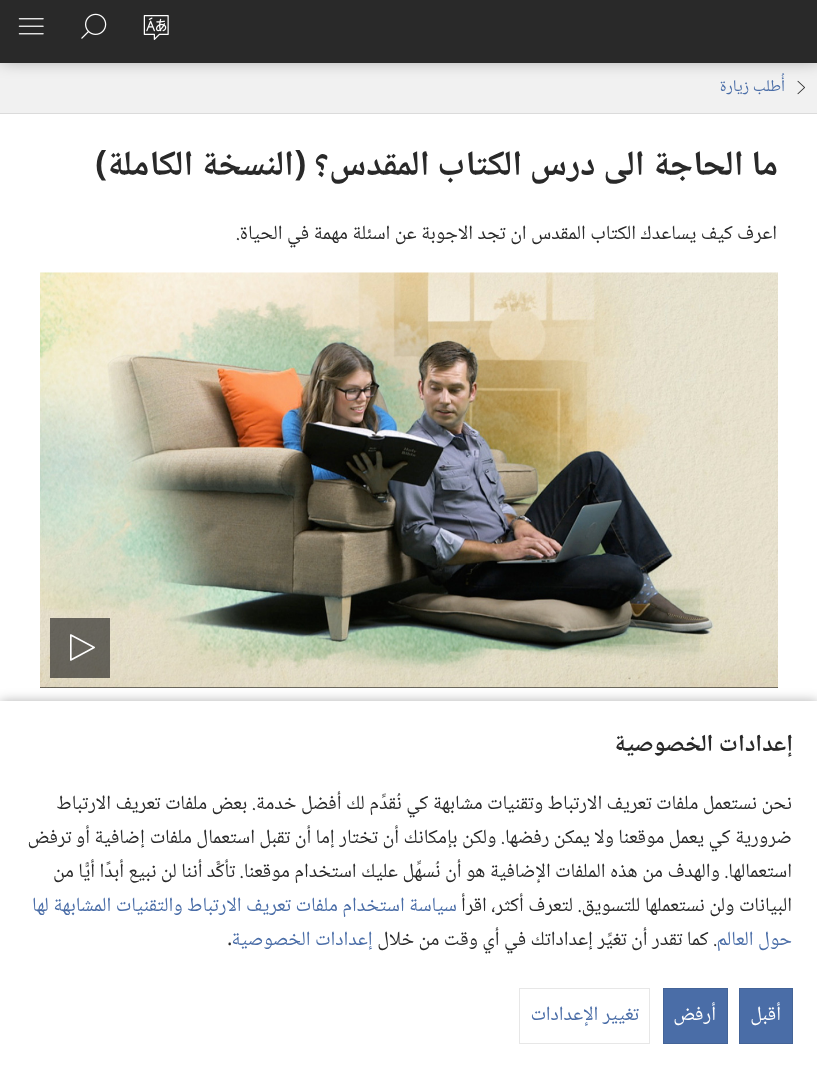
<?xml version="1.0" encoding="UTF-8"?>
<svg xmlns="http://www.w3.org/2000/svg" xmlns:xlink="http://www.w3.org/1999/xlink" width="817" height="1068">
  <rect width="100%" height="100%" fill="#ffffff" />
  <rect y="63" width="817" height="50" fill="#f1f1f1" />
  <image x="797" y="80" width="8" height="15" xlink:href="image4.png" />
  <rect x="1" y="-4" width="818" height="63" fill="#000000" fill-opacity="0.4" filter="blur(9px)" />
  <rect width="817" height="63" fill="#292929" />
  <image x="143" y="15" width="26" height="25" xlink:href="image1.png" />
  <image x="81" y="13" width="26" height="26" xlink:href="image2.png" />
  <image x="18" y="18" width="26" height="17" xlink:href="image3.png" />
  <rect y="113" width="817" height="1" fill="#dbdbdb" />
  <rect x="40" y="687" width="738" height="1" fill="#000000" />
  <image x="40" y="272" width="738" height="416" xlink:href="image5.png" />
  <rect x="50" y="618" width="60" height="60" fill="#121212" fill-opacity="0.6" />
  <image x="70" y="634" width="25" height="27" xlink:href="image6.png" />
  <rect y="701" width="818" height="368" fill="#000000" fill-opacity="0.3" filter="blur(6px)" />
  <rect y="701" width="817" height="367" fill="#ffffff" />
  <rect x="739.5" y="988.5" width="53" height="55" fill="#4a6da7" stroke="#446498" />
  <rect x="663.5" y="988.5" width="64" height="55" fill="#4a6da7" stroke="#446498" />
  <rect x="519.5" y="988.5" width="130" height="55" fill="none" stroke="#e7e7e7" />
  <text x="785" y="91" style="font-family: Noto Naskh Arabic; font-size: 16.5px; direction: rtl; fill: #4a6da7">أُطلب زيارة</text>
  <text x="778" y="175" style="font-family: Noto Naskh Arabic; font-size: 35px; font-weight: bold; direction: rtl; fill: #292929">ما الحاجة الى درس الكتاب المقدس؟</text>
  <text x="306" y="175" style="font-family: Noto Sans; font-size: 35px; font-weight: bold; direction: rtl; fill: #292929">(</text>
  <text x="294" y="175" style="font-family: Noto Naskh Arabic; font-size: 35px; font-weight: bold; direction: rtl; fill: #292929">النسخة الكاملة</text>
  <text x="107" y="175" style="font-family: Noto Sans; font-size: 35px; font-weight: bold; direction: rtl; fill: #292929">)</text>
  <text x="777" y="239" style="font-family: Noto Naskh Arabic; font-size: 20px; direction: rtl; fill: #292929">اعرف كيف يساعدك الكتاب المقدس ان تجد الاجوبة عن اسئلة مهمة في الحياة.</text>
  <text x="793" y="751" style="font-family: Noto Naskh Arabic; font-size: 24px; font-weight: bold; direction: rtl; fill: #292929">إعدادات الخصوصية</text>
  <text x="792" y="809" style="font-family: Noto Naskh Arabic; font-size: 20px; direction: rtl; fill: #292929">نحن نستعمل ملفات تعريف الارتباط وتقنيات مشابهة كي نُقدِّم لك أفضل خدمة. بعض ملفات تعريف الارتباط</text>
  <text x="792" y="843" style="font-family: Noto Naskh Arabic; font-size: 20px; direction: rtl; fill: #292929">ضرورية كي يعمل موقعنا ولا يمكن رفضها. ولكن بإمكانك أن تختار إما أن تقبل استعمال ملفات إضافية أو ترفض</text>
  <text x="792" y="877" style="font-family: Noto Naskh Arabic; font-size: 20px; direction: rtl; fill: #292929">استعمالها. والهدف من هذه الملفات الإضافية هو أن نُسهِّل عليك استخدام موقعنا. تأكَّد أننا لن نبيع أبدًا أيًّا من</text>
  <text x="792" y="911" style="font-family: Noto Naskh Arabic; font-size: 20px; direction: rtl; fill: #292929">البيانات ولن نستعملها للتسويق. لتعرف أكثر، اقرأ</text>
  <text x="457" y="911" style="font-family: Noto Naskh Arabic; font-size: 20px; direction: rtl; fill: #4a6da7">سياسة استخدام ملفات تعريف الارتباط والتقنيات المشابهة لها</text>
  <text x="792" y="945" style="font-family: Noto Naskh Arabic; font-size: 20px; direction: rtl; fill: #4a6da7">حول العالم</text>
  <text x="717" y="945" style="font-family: Noto Naskh Arabic; font-size: 20px; direction: rtl; fill: #292929">. كما تقدر أن تغيِّر إعداداتك في أي وقت من خلال</text>
  <text x="373" y="945" style="font-family: Noto Naskh Arabic; font-size: 20px; direction: rtl; fill: #4a6da7">إعدادات الخصوصية</text>
  <text x="227" y="945" style="font-family: Noto Naskh Arabic; font-size: 20px; fill: #292929">.</text>
  <text x="781" y="1020" style="font-family: Noto Naskh Arabic; font-size: 20px; direction: rtl; fill: #ffffff">أقبل</text>
  <text x="716" y="1020" style="font-family: Noto Naskh Arabic; font-size: 20px; direction: rtl; fill: #ffffff">أرفض</text>
  <text x="639" y="1020" style="font-family: Noto Naskh Arabic; font-size: 20px; direction: rtl; fill: #4a6da7">تغيير الإعدادات</text>
</svg>
